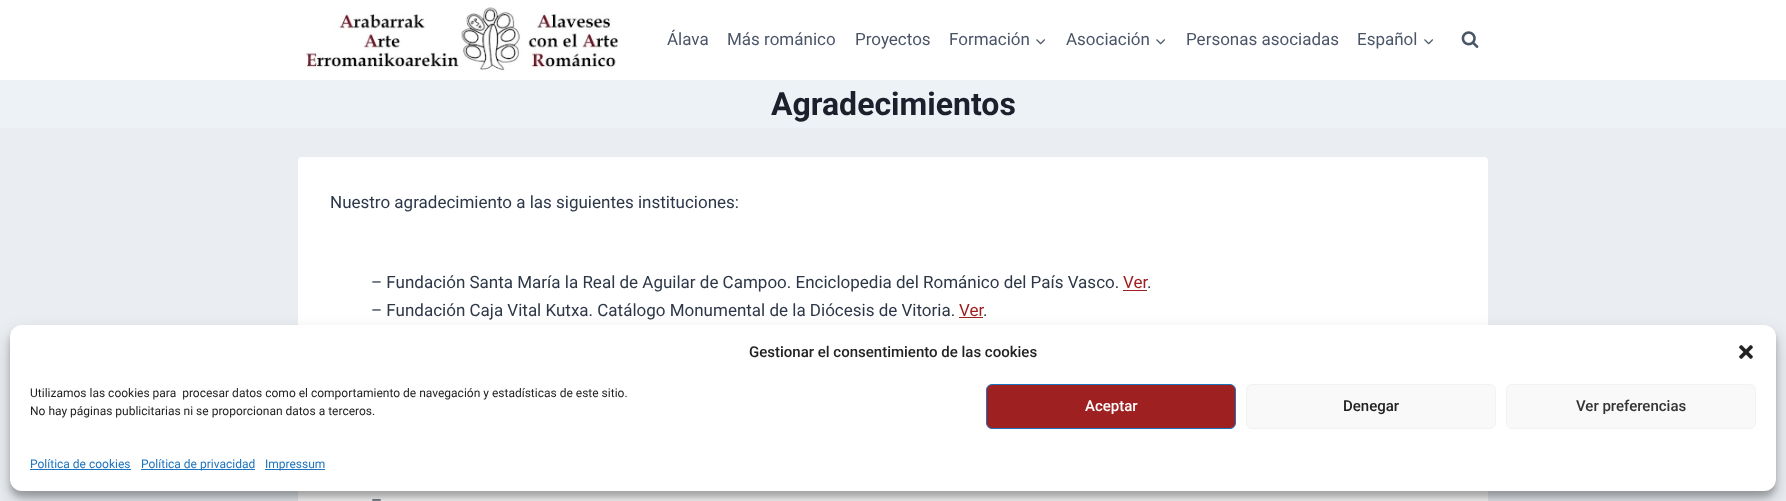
<?xml version="1.0" encoding="UTF-8"?>
<svg xmlns="http://www.w3.org/2000/svg" xmlns:xlink="http://www.w3.org/1999/xlink" width="1786" height="501">
  <rect width="100%" height="100%" fill="#eaeef3" />
  <rect width="1786" height="80" fill="#ffffff" />
  <image x="305" y="7" width="314" height="65" xlink:href="image1.png" />
  <image x="1036" y="39" width="10" height="6" xlink:href="image2.png" />
  <image x="1156" y="39" width="10" height="6" xlink:href="image2.png" />
  <image x="1424" y="39" width="10" height="6" xlink:href="image2.png" />
  <image x="1461" y="31" width="18" height="17" xlink:href="image3.png" />
  <rect y="80" width="1786" height="48" fill="#edf2f7" />
  <rect x="298" y="157" width="1190" height="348" rx="4" fill="#ffffff" />
  <rect x="1123" y="290" width="24" height="1" fill="#9f2020" />
  <rect x="959" y="317" width="24" height="1" fill="#9f2020" />
  <rect x="10" y="331" width="1766" height="166" rx="12" fill="#000000" fill-opacity="0.23" filter="blur(3px)" />
  <rect x="10" y="335" width="1766" height="166" rx="12" fill="#000000" fill-opacity="0.19" filter="blur(10px)" />
  <rect x="10" y="325" width="1766" height="166" rx="12" fill="#ffffff" />
  <image x="1739" y="345" width="14" height="14" xlink:href="image4.png" />
  <rect x="986.5" y="384.5" width="249" height="44" rx="5.5" fill="#9f2020" stroke="#1e73be" />
  <rect x="1246.5" y="384.5" width="249" height="44" rx="5.5" fill="#f9f9f9" stroke="#f2f2f2" />
  <rect x="1506.5" y="384.5" width="249" height="44" rx="5.5" fill="#f9f9f9" stroke="#f2f2f2" />
  <rect x="30" y="469" width="101" height="1" fill="#1e73be" />
  <rect x="141" y="469" width="114" height="1" fill="#1e73be" />
  <rect x="265" y="469" width="60" height="1" fill="#1e73be" />
  <text x="667" y="45" style="font-family: Roboto; font-size: 17px; fill: #4a5568">Álava</text>
  <text x="727" y="45" style="font-family: Roboto; font-size: 17px; fill: #4a5568">Más románico</text>
  <text x="855" y="45" style="font-family: Roboto; font-size: 17px; fill: #4a5568">Proyectos</text>
  <text x="949" y="45" style="font-family: Roboto; font-size: 17px; fill: #4a5568">Formación</text>
  <text x="1066" y="45" style="font-family: Roboto; font-size: 17px; fill: #4a5568">Asociación</text>
  <text x="1186" y="45" style="font-family: Roboto; font-size: 17px; fill: #4a5568">Personas asociadas</text>
  <text x="1357" y="45" style="font-family: Roboto; font-size: 17px; fill: #4a5568">Español</text>
  <text x="771" y="115" style="font-family: Roboto; font-size: 32px; font-weight: bold; fill: #1a202c">Agradecimientos</text>
  <text x="330" y="208" style="font-family: Roboto; font-size: 17px; fill: #2d3748">Nuestro agradecimiento a las siguientes instituciones:</text>
  <text x="371" y="288" style="font-family: Roboto; font-size: 17px; fill: #2d3748">– Fundación Santa María la Real de Aguilar de Campoo. Enciclopedia del Románico del País Vasco.</text>
  <text x="1123" y="288" style="font-family: Roboto; font-size: 17px; fill: #9f2020">Ver</text>
  <text x="1147" y="288" style="font-family: Roboto; font-size: 17px; fill: #2d3748">.</text>
  <text x="371" y="316" style="font-family: Roboto; font-size: 17px; fill: #2d3748">– Fundación Caja Vital Kutxa. Catálogo Monumental de la Diócesis de Vitoria.</text>
  <text x="959" y="316" style="font-family: Roboto; font-size: 17px; fill: #9f2020">Ver</text>
  <text x="983" y="316" style="font-family: Roboto; font-size: 17px; fill: #2d3748">.</text>
  <text x="371" y="506" style="font-family: Roboto; font-size: 17px; fill: #2d3748">–</text>
  <text x="749" y="357" style="font-family: Roboto; font-size: 15px; font-weight: 500; fill: #222222">Gestionar el consentimiento de las cookies</text>
  <text x="30" y="397" style="font-family: Roboto; font-size: 12px; fill: #222222" xml:space="preserve">Utilizamos las cookies para  procesar datos como el comportamiento de navegación y estadísticas de este sitio.</text>
  <text x="30" y="415" style="font-family: Roboto; font-size: 12px; fill: #222222">No hay páginas publicitarias ni se proporcionan datos a terceros.</text>
  <text x="1085" y="411" style="font-family: Roboto; font-size: 15px; font-weight: 500; fill: #ffffff">Aceptar</text>
  <text x="1343" y="411" style="font-family: Roboto; font-size: 15px; font-weight: 500; fill: #222222">Denegar</text>
  <text x="1576" y="411" style="font-family: Roboto; font-size: 15px; font-weight: 500; fill: #333333">Ver preferencias</text>
  <text x="30" y="468" style="font-family: Roboto; font-size: 12px; fill: #1e73be">Política de cookies</text>
  <text x="141" y="468" style="font-family: Roboto; font-size: 12px; fill: #1e73be">Política de privacidad</text>
  <text x="265" y="468" style="font-family: Roboto; font-size: 12px; fill: #1e73be">Impressum</text>
</svg>
